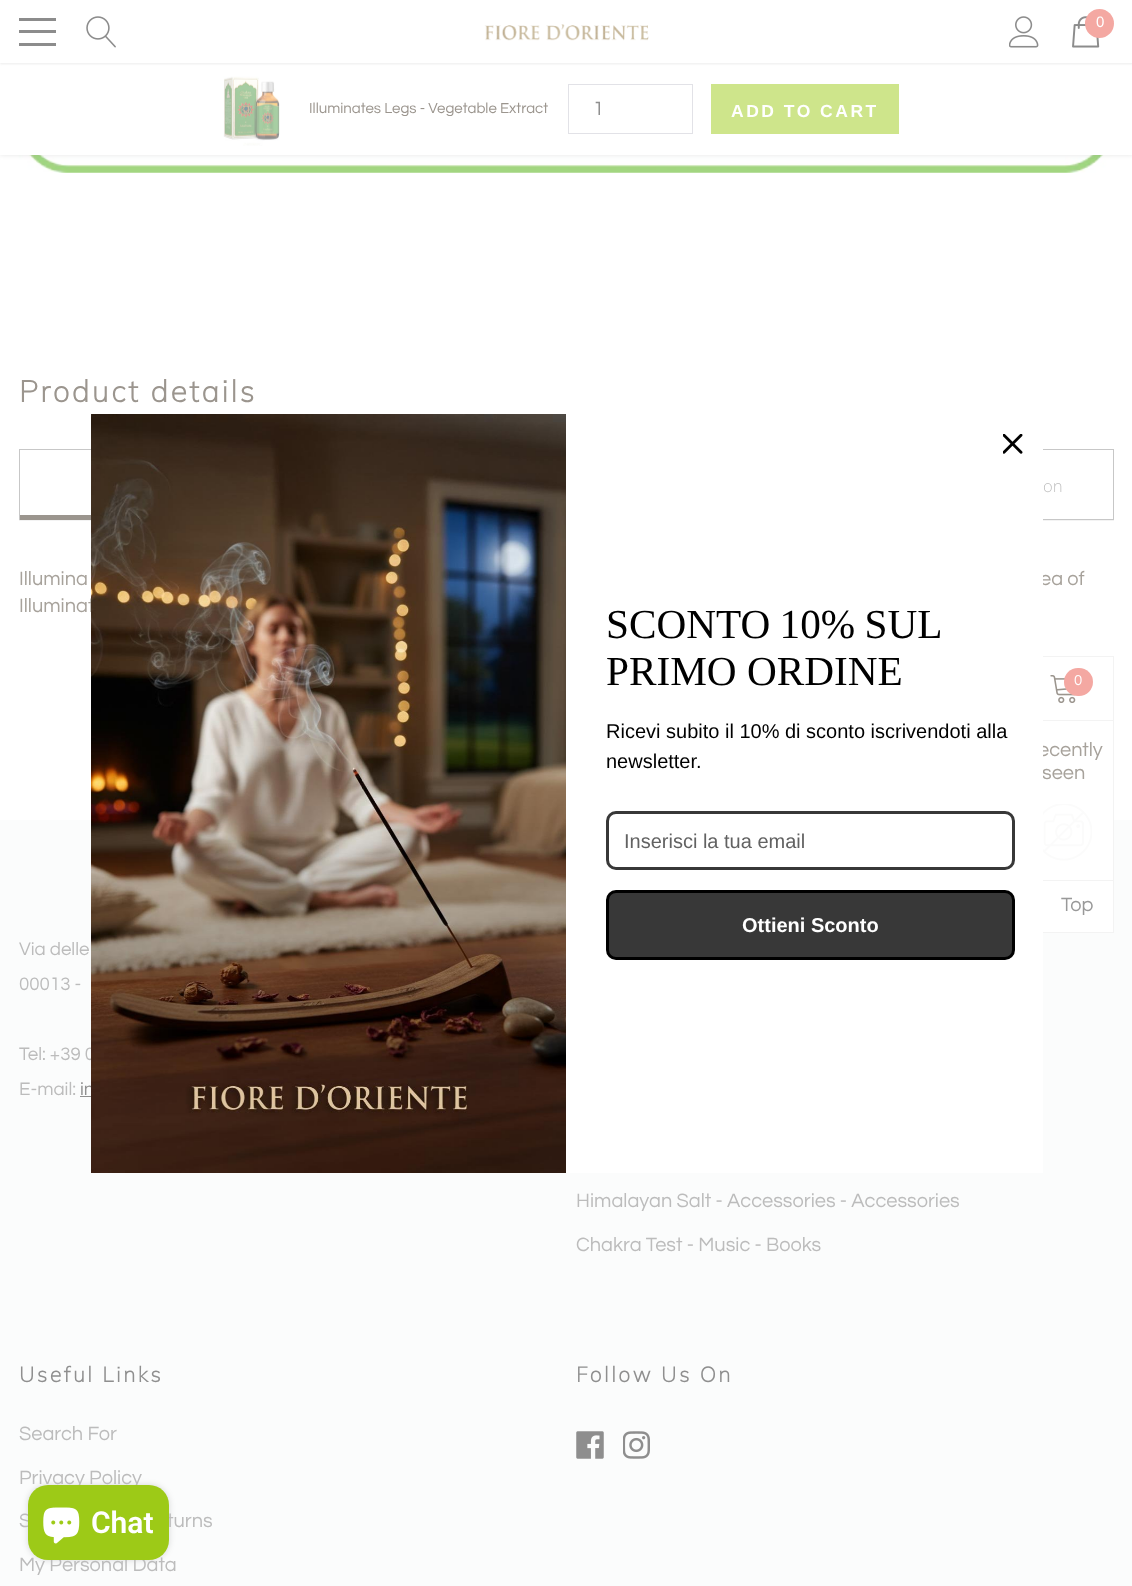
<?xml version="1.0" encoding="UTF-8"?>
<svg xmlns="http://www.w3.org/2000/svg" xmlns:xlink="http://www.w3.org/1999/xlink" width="1132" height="1586">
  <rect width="100%" height="100%" fill="#ffffff" />
  <image x="18" y="155" width="1096" height="18" xlink:href="image6.png" />
  <rect y="63" width="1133" height="92" fill="#808080" fill-opacity="0.2" filter="blur(2.5px)" />
  <rect y="63" width="1132" height="92" fill="#ffffff" />
  <rect y="1" width="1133" height="63" fill="#808080" fill-opacity="0.15" filter="blur(1px)" />
  <rect width="1132" height="63" fill="#ffffff" />
  <rect x="19" y="30" width="37" height="3" fill="#8c8c8c" />
  <rect x="19" y="18" width="37" height="3" fill="#8c8c8c" />
  <rect x="19" y="43" width="37" height="3" fill="#8c8c8c" />
  <image x="86" y="16" width="30" height="32" xlink:href="image1.png" />
  <image x="1009" y="16" width="30" height="32" xlink:href="image2.png" />
  <image x="1072" y="16" width="28" height="32" xlink:href="image3.png" />
  <circle cx="1099.5" cy="23.5" r="14.5" fill="#f4a8a2" />
  <image x="484" y="24" width="165" height="17" xlink:href="image4.png" />
  <image x="223" y="76" width="57" height="70" xlink:href="image5.png" />
  <rect x="568.5" y="84.5" width="124" height="49" fill="none" stroke="#e2e2e7" />
  <rect x="711" y="84" width="188" height="50" fill="#cee58b" />
  <rect x="19" y="520" width="1095" height="1" fill="#f3f3f3" />
  <rect x="19.5" y="449.5" width="273" height="70" fill="none" stroke="#c7c7c7" />
  <rect x="20" y="515" width="71" height="5" fill="#9b958e" />
  <rect x="1043" y="449" width="71" height="1" fill="#c7c7c7" />
  <rect x="1113" y="449" width="1" height="71" fill="#c7c7c7" />
  <rect x="1043" y="519" width="71" height="1" fill="#c7c7c7" />
  <image x="1003" y="434" width="20" height="20" xlink:href="image7.png" />
  <rect y="820" width="1132" height="766" fill="#fbfcfc" />
  <rect x="1043" y="820" width="70" height="112" fill="#ffffff" />
  <rect x="1014.5" y="656.5" width="99" height="276" fill="none" stroke="#f3f3f3" />
  <image x="1050" y="675" width="26" height="28" xlink:href="image9.png" />
  <rect x="1064" y="668" width="29" height="28" rx="14" fill="#f4a8a2" />
  <rect x="1043" y="720" width="70" height="1" fill="#f3f3f3" />
  <rect x="1043" y="880" width="70" height="1" fill="#f3f3f3" />
  <image x="1043" y="804" width="49" height="57" xlink:href="image10.png" />
  <rect x="80" y="1096" width="11" height="1" fill="#8f8f8f" />
  <image x="576" y="1431" width="28" height="28" xlink:href="image11.png" />
  <image x="623" y="1431" width="27" height="28" xlink:href="image12.png" />
  <rect x="28" y="1485" width="141" height="75" rx="20" fill="#000000" fill-opacity="0.15" filter="blur(3px)" />
  <text x="1096" y="27" style="font-family: Liberation Sans; font-size: 15px; fill: #ffffff">0</text>
  <text x="309" y="113" style="font-family: Questrial; font-size: 15px; fill: #9b958e">Illuminates Legs - Vegetable Extract</text>
  <text x="593" y="115" style="font-family: Questrial; font-size: 20px; fill: #8f8f8f">1</text>
  <text x="731" y="117" style="font-family: Liberation Sans; font-size: 17.5px; font-weight: bold; letter-spacing: 2.5px; fill: #ffffff">ADD TO CART</text>
  <text x="19" y="402" style="font-family: Muli; font-size: 30px; font-weight: bold; letter-spacing: 2.5px; fill: #9b958e">Product details</text>
  <text x="1043" y="492" style="font-family: Muli; font-size: 17.5px; font-weight: 200; fill: #bcbcbc">on</text>
  <text x="19" y="585" style="font-family: Questrial; font-size: 20px; fill: #a7a29b">Illumina</text>
  <text x="1040" y="585" style="font-family: Questrial; font-size: 20px; fill: #a7a29b">ea of</text>
  <text x="19" y="612" style="font-family: Questrial; font-size: 20px; fill: #a7a29b">Illuminat</text>
  <text x="1074" y="685" style="font-family: Questrial; font-size: 15px; fill: #ffffff">0</text>
  <text x="1038" y="756" style="font-family: Questrial; font-size: 20px; fill: #a7a29b">ecently</text>
  <text x="1042" y="779" style="font-family: Questrial; font-size: 20px; fill: #a7a29b">seen</text>
  <rect x="566" y="520" width="477" height="653" fill="#ffffff" />
  <rect x="607.5" y="891.5" width="406" height="67" rx="8.5" fill="#383838" stroke="#000000" stroke-width="3" />
  <text x="742" y="932" style="font-family: Liberation Sans; font-size: 20px; font-weight: bold; fill: #ffffff">Ottieni Sconto</text>
  <rect x="607.5" y="812.5" width="406" height="56" rx="8.5" fill="none" stroke="#383838" stroke-width="3" />
  <text x="624" y="848" style="font-family: Liberation Sans; font-size: 20px; fill: #626262">Inserisci la tua email</text>
  <text x="606" y="768" style="font-family: Liberation Sans; font-size: 20px; fill: #000000">newsletter.</text>
  <text x="606" y="738" style="font-family: Liberation Sans; font-size: 20px; fill: #000000">Ricevi subito il 10% di sconto iscrivendoti alla</text>
  <text x="606" y="685" style="font-family: Liberation Serif; font-size: 41.25px; fill: #000000">PRIMO ORDINE</text>
  <text x="606" y="638" word-spacing="-1" style="font-family: Liberation Serif; font-size: 41.25px; fill: #000000">SCONTO 10% SUL</text>
  <text x="1061" y="911" style="font-family: Questrial; font-size: 20px; fill: #999999">Top</text>
  <text x="19" y="955" style="font-family: Questrial; font-size: 18.75px; fill: #bcbcbc">Via delle</text>
  <text x="19" y="990" style="font-family: Questrial; font-size: 18.75px; fill: #bcbcbc">00013 -</text>
  <text x="19" y="1060" style="font-family: Questrial; font-size: 18.75px; fill: #bcbcbc">Tel: +39 0</text>
  <text x="19" y="1095" style="font-family: Questrial; font-size: 18.75px; fill: #bcbcbc">E-mail:</text>
  <text x="80" y="1095" style="font-family: Questrial; font-size: 18.75px; fill: #8f8f8f">in</text>
  <image x="91" y="414" width="475" height="759" xlink:href="image8.png" />
  <text x="576" y="1207" style="font-family: Questrial; font-size: 20px; fill: #bcbcbc">Himalayan Salt - Accessories - Accessories</text>
  <text x="576" y="1251" style="font-family: Questrial; font-size: 20px; fill: #bcbcbc">Chakra Test - Music - Books</text>
  <text x="19" y="1382" style="font-family: Muli; font-size: 21.25px; font-weight: bold; letter-spacing: 2.5px; fill: #8f8f8f">Useful Links</text>
  <text x="19" y="1440" style="font-family: Questrial; font-size: 20px; fill: #bcbcbc">Search For</text>
  <text x="19" y="1484" style="font-family: Questrial; font-size: 20px; fill: #bcbcbc">Privacy Policy</text>
  <text x="19" y="1527" style="font-family: Questrial; font-size: 20px; fill: #bcbcbc">S</text>
  <text x="167" y="1527" style="font-family: Questrial; font-size: 20px; fill: #bcbcbc">turns</text>
  <text x="19" y="1571" style="font-family: Questrial; font-size: 20px; fill: #bcbcbc">My Personal Data</text>
  <text x="576" y="1382" style="font-family: Muli; font-size: 21.25px; font-weight: bold; letter-spacing: 2.5px; fill: #8f8f8f">Follow Us On</text>
  <rect x="28" y="1485" width="141" height="75" rx="20" fill="#9dca17" />
  <image x="43" y="1507" width="37" height="37" xlink:href="image13.png" />
  <text x="91" y="1533" style="font-family: Roboto; font-size: 30px; font-weight: 600; fill: #ffffff">Chat</text>
</svg>
